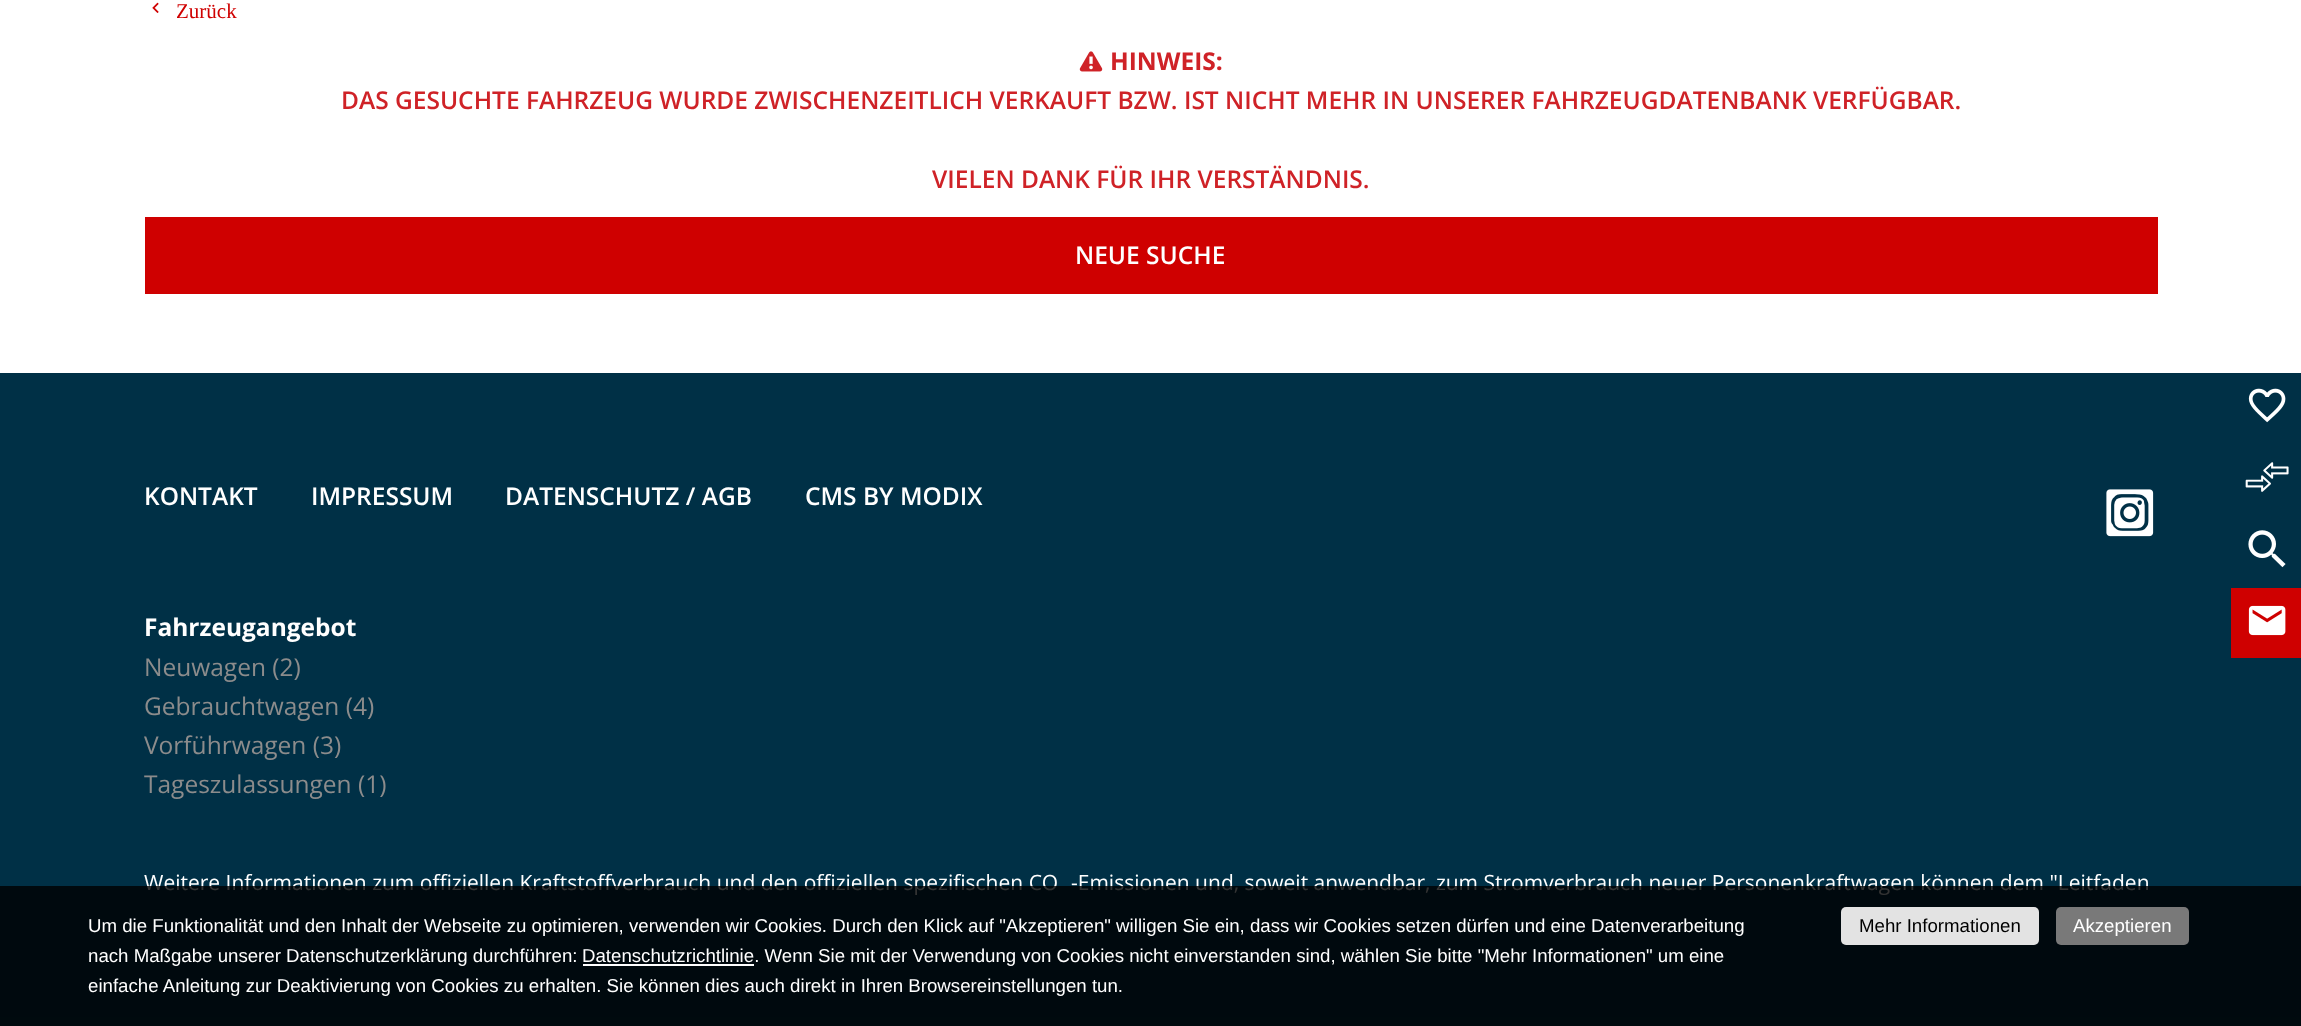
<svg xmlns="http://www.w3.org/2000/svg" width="2301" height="1026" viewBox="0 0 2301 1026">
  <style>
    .t1 { font: 21px Liberation Serif; fill: #cf0000; }
    .t2 { font: bold 24.5px Open Sans; fill: #cf2227; }
    .t3 { font: 600 24.5px Open Sans; fill: #cf2227; }
    .t4 { font: 600 24.5px Open Sans; fill: #fff; }
    .t5 { font: bold 24.5px Open Sans; fill: #fff; }
    .t6 { font: 24.5px Open Sans; fill: #8c8c8c; }
    .t7 { font: 21px Open Sans; fill: #fff; }
    .t8 { font: 18.67px Liberation Sans; fill: #fff; }
    .t9 { font: 18.67px Liberation Sans; fill: #000; }
  </style>
  <rect width="100%" height="100%" fill="#fff"/>
  <image x="152" y="2" width="7" height="11" href="images/1.png"/>
  <text x="176" y="18" class="t1">Zurück</text>
  <image x="1079" y="51" width="24" height="21" href="images/2.png"/>
  <text x="1110" y="70" class="t2">HINWEIS:</text>
  <text x="341" y="109" class="t3">DAS GESUCHTE FAHRZEUG WURDE ZWISCHENZEITLICH VERKAUFT BZW. IST NICHT MEHR IN UNSERER FAHRZEUGDATENBANK VERFÜGBAR.</text>
  <text x="932" y="188" class="t3">VIELEN DANK FÜR IHR VERSTÄNDNIS.</text>
  <rect x="145" y="217" width="2013" height="77" fill="#cf0000"/>
  <text x="1075" y="264" class="t4">NEUE SUCHE</text>
  <rect x="0" y="373" width="2301" height="653" fill="#003046"/>
  <text x="144" y="505" class="t4">KONTAKT</text>
  <text x="311" y="505" class="t4">IMPRESSUM</text>
  <text x="505" y="505" class="t4">DATENSCHUTZ / AGB</text>
  <text x="805" y="505" class="t4">CMS BY MODIX</text>
  <image x="2106" y="489" width="48" height="48" href="images/3.png"/>
  <text x="144" y="636" class="t5">Fahrzeugangebot</text>
  <text x="144" y="676" class="t6">Neuwagen (2)</text>
  <text x="144" y="715" class="t6">Gebrauchtwagen (4)</text>
  <text x="144" y="754" class="t6">Vorführwagen (3)</text>
  <text x="144" y="793" class="t6">Tageszulassungen (1)</text>
  <text x="144" y="890" class="t7">Weitere Informationen zum offiziellen Kraftstoffverbrauch und den offiziellen spezifischen CO</text>
  <text x="1071" y="890" class="t7">-Emissionen und, soweit anwendbar, zum Stromverbrauch neuer Personenkraftwagen können dem "Leitfaden</text>
  <image x="2248" y="388" width="38" height="35" href="images/4.png"/>
  <image x="2245" y="462" width="44" height="30" href="images/5.png"/>
  <image x="2248" y="530" width="38" height="38" href="images/6.png"/>
  <rect x="2231" y="588" width="70" height="70" fill="#cf0000"/>
  <image x="2248" y="605" width="38" height="31" href="images/7.png"/>
  <rect x="0" y="886" width="2301" height="140" fill="#000000cc"/>
  <text x="88" y="932" class="t8">Um die Funktionalität und den Inhalt der Webseite zu optimieren, verwenden wir Cookies. Durch den Klick auf "Akzeptieren" willigen Sie ein, dass wir Cookies setzen dürfen und eine Datenverarbeitung</text>
  <text x="88" y="962" class="t8">nach Maßgabe unserer Datenschutzerklärung durchführen:</text>
  <rect x="583" y="964" width="171" height="2" fill="#fff"/>
  <text x="582" y="962" class="t8">Datenschutzrichtlinie. Wenn Sie mit der Verwendung von Cookies nicht einverstanden sind, wählen Sie bitte "Mehr Informationen" um eine</text>
  <text x="88" y="992" class="t8">einfache Anleitung zur Deaktivierung von Cookies zu erhalten. Sie können dies auch direkt in Ihren Browsereinstellungen tun.</text>
  <rect x="1841" y="907" width="198" height="38" rx="5" fill="#e3e3e3"/>
  <text x="1859" y="932" class="t9">Mehr Informationen</text>
  <rect x="2056" y="907" width="133" height="38" rx="5" fill="#797979"/>
  <text x="2073" y="932" class="t8">Akzeptieren</text>
</svg>
